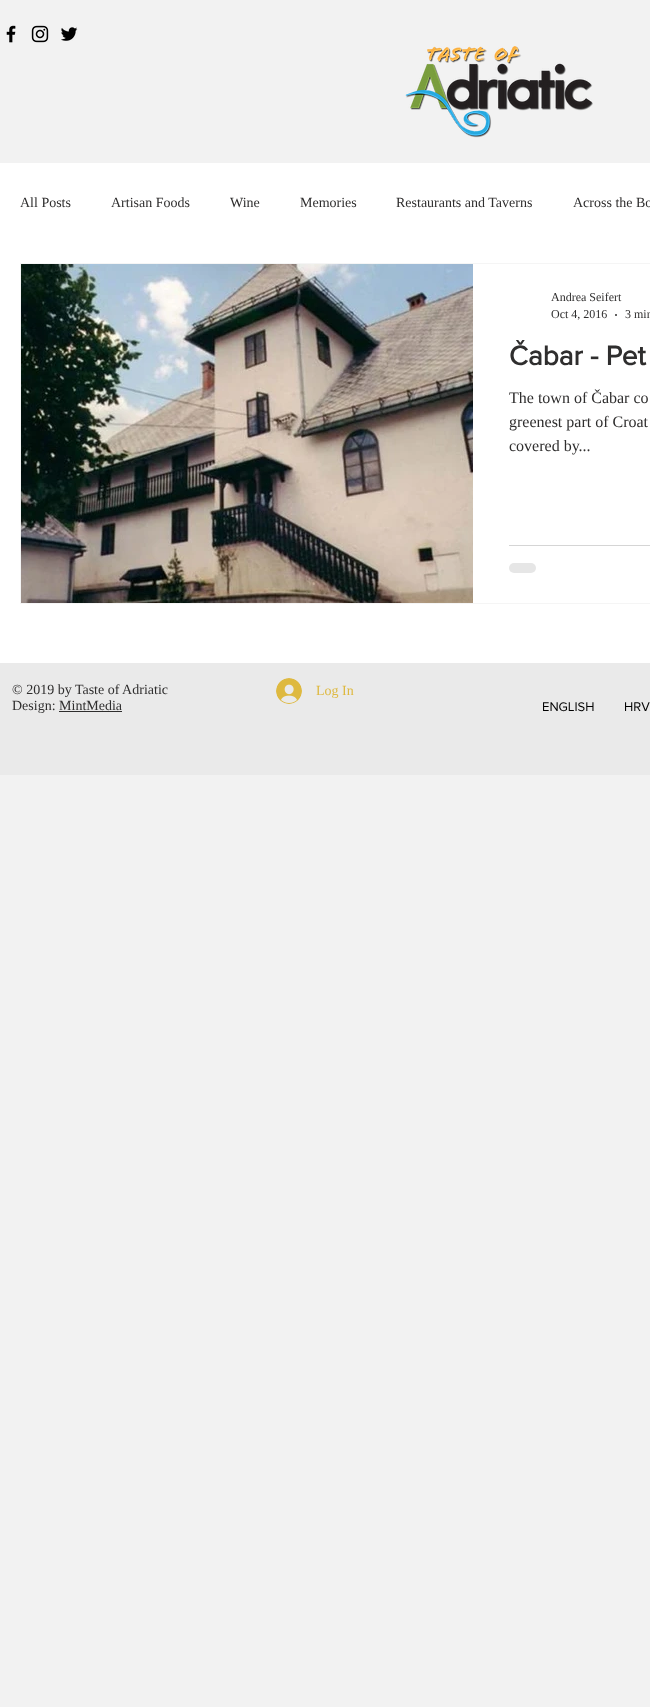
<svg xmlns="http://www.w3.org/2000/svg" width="650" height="1707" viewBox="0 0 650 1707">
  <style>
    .t1 { font: 14px Liberation Serif; fill: #2f2e2e; }
    .t2 { font: 12px Liberation Serif; fill: #2f2e2e; }
    .t3 { font: bold 28px 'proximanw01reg'; fill: #2f2e2e; }
    .t4 { font: 16px Liberation Serif; fill: #2f2e2e; }
    .t5 { font: 14px Liberation Serif; fill: #deb940; }
    .t6 { font: 13px 'proximanw01reg'; fill: #000; }
  </style>
  <rect width="100%" height="100%" fill="#f2f2f2"/>
  <image x="6" y="25" width="10" height="18" href="images/1.png"/>
  <image x="31" y="25" width="18" height="18" href="images/2.png"/>
  <image x="61" y="27" width="17" height="14" href="images/3.png"/>
  <image x="405" y="46" width="188" height="92" href="images/4.png"/>
  <rect x="0" y="163" width="650" height="500" fill="#fff"/>
  <text x="20" y="207" class="t1">All Posts</text>
  <text x="111" y="207" class="t1">Artisan Foods</text>
  <text x="230" y="207" class="t1">Wine</text>
  <text x="300" y="207" class="t1">Memories</text>
  <text x="396" y="207" class="t1">Restaurants and Taverns</text>
  <text x="573" y="207" class="t1">Across the Bo</text>
  <rect x="20.5" y="263.5" width="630" height="340" fill="none" stroke="#f5f5f5"/>
  <image x="21" y="264" width="452" height="339" href="images/5.png"/>
  <text x="551" y="301" class="t2">Andrea Seifert</text>
  <text x="551" y="318" class="t2">Oct 4, 2016</text>
  <circle cx="616" cy="315" r="1" fill="#2f2e2e"/>
  <text x="625" y="318" class="t2">3 min</text>
  <text x="509" y="365" class="t3">Čabar - Pet</text>
  <text x="509" y="403" class="t4">The town of Čabar co</text>
  <text x="509" y="427" class="t4">greenest part of Croat</text>
  <text x="509" y="451" class="t4">covered by...</text>
  <rect x="509" y="545" width="141" height="1" fill="#d5d5d5"/>
  <rect x="509" y="563" width="27" height="10" rx="5" fill="#e6e6e6"/>
  <rect x="0" y="663" width="650" height="112" fill="#eaeaea"/>
  <text x="12" y="694" class="t1">© 2019 by Taste of Adriatic</text>
  <text x="12" y="710" class="t1">Design: MintMedia</text>
  <rect x="59" y="711" width="63" height="1" fill="#2f2e2e"/>
  <image x="276" y="678" width="26" height="26" href="images/6.png"/>
  <text x="316" y="695" class="t5">Log In</text>
  <text x="542" y="711" class="t6">ENGLISH</text>
  <text x="624" y="711" class="t6">HRV</text>
</svg>
